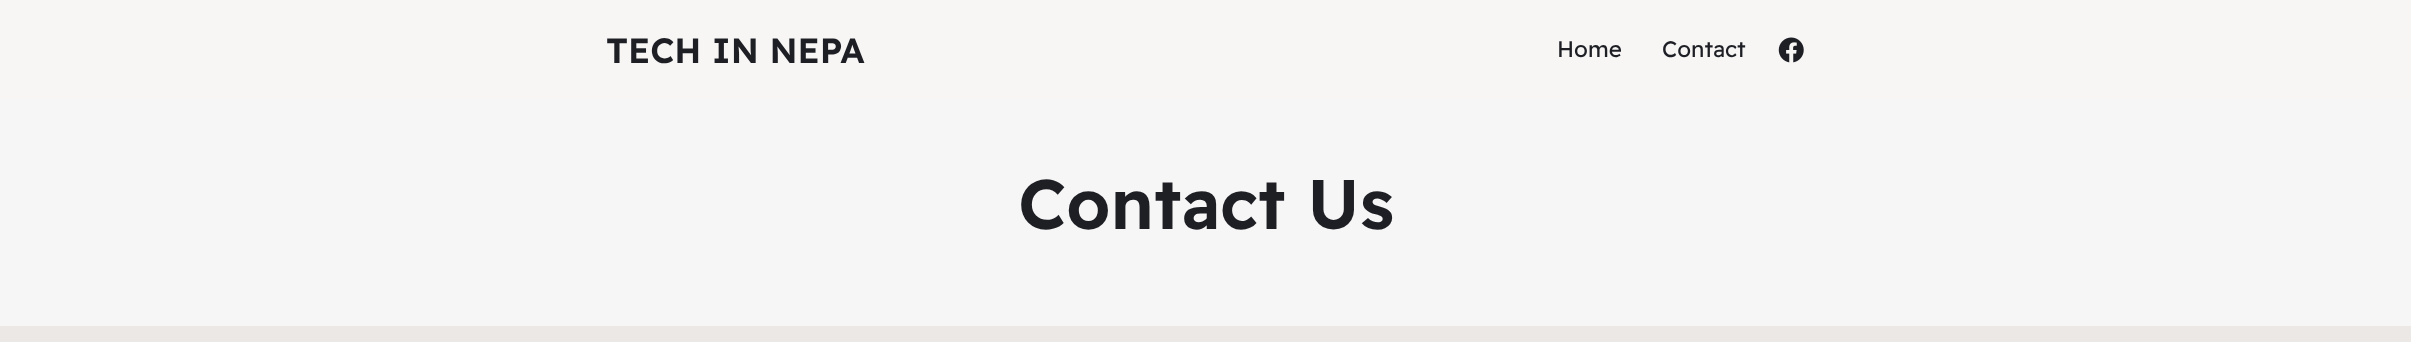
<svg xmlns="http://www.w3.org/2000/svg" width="2411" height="342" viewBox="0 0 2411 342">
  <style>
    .t1 { font: 600 35px Readex Pro; fill: #1d1f25; }
    .t2 { font: 22.5px Readex Pro; fill: #1d1f25; }
    .t3 { font: 600 70px Readex Pro; fill: #1d1f25; }
  </style>
  <rect width="100%" height="100%" fill="#ebe8e6"/>
  <rect x="0" y="0" width="2411" height="99" fill="#f7f6f5"/>
  <text x="606" y="63" class="t1">TECH IN NEPA</text>
  <text x="1557" y="57" class="t2">Home</text>
  <text x="1662" y="57" class="t2">Contact</text>
  <image x="1778" y="37" width="26" height="26" href="images/1.png"/>
  <rect x="0" y="99" width="2411" height="227" fill="#f7f6f6"/>
  <text x="1018" y="229" class="t3">Contact Us</text>
</svg>
